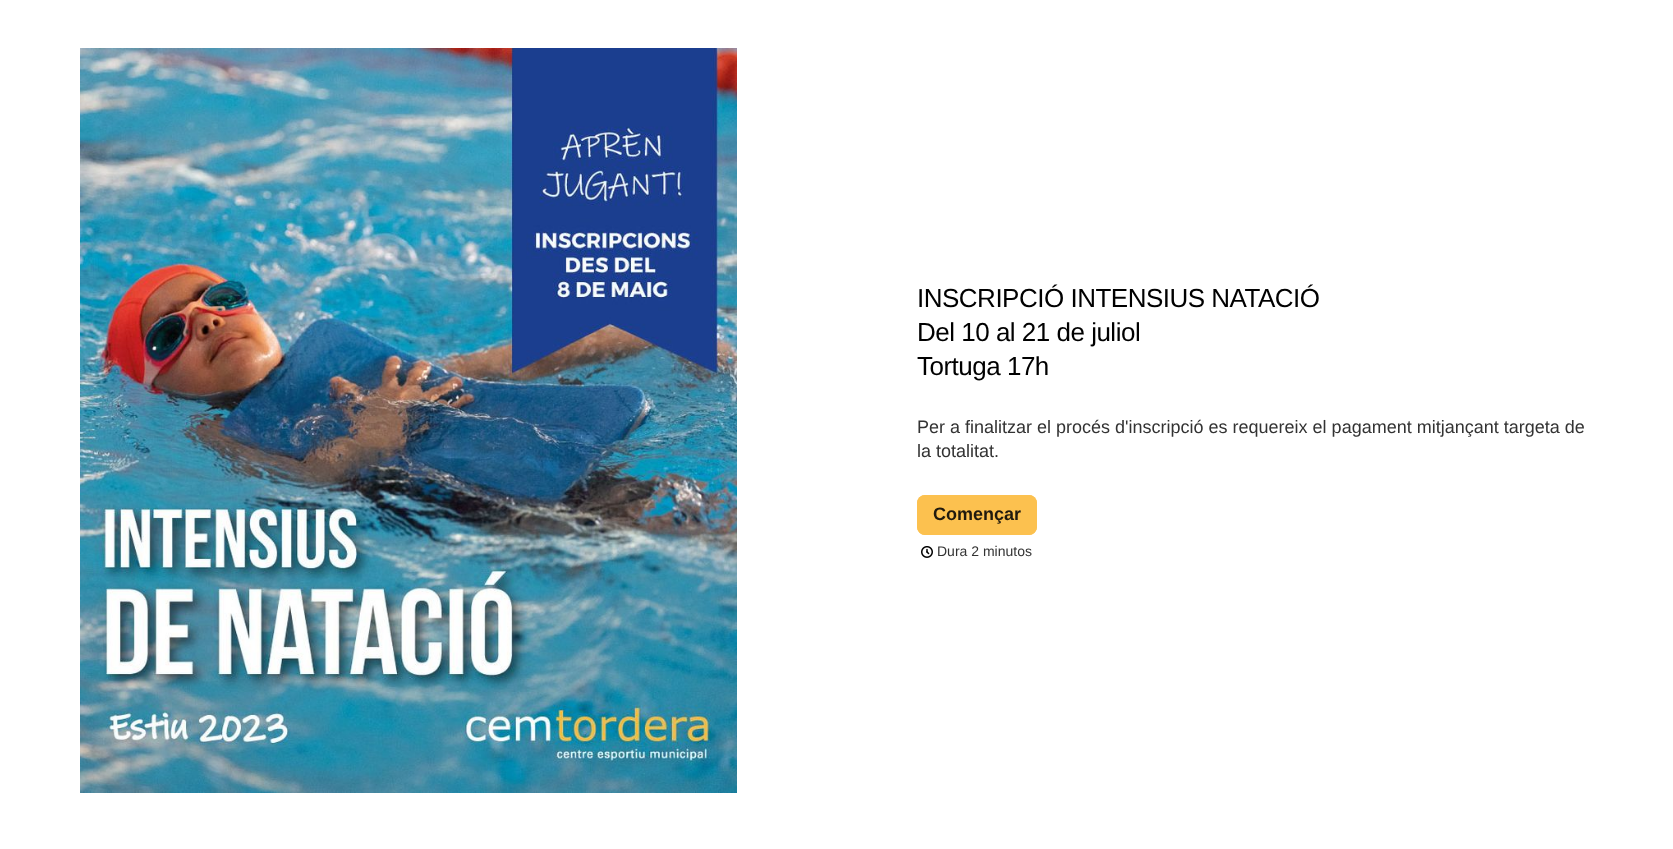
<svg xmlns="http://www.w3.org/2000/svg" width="1673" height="849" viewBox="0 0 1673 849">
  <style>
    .t1 { font: 26px Liberation Sans; letter-spacing: -0.5px; fill: #000; }
    .t2 { font: 18px Liberation Sans; fill: #333; }
    .t3 { font: bold 18px Liberation Sans; fill: #201a0e; }
    .t4 { font: 14px Liberation Sans; fill: #333; }
  </style>
  <rect width="100%" height="100%" fill="#fff"/>
  <image x="80" y="48" width="657" height="745" href="images/1.png"/>
  <text x="917" y="307" class="t1">INSCRIPCIÓ INTENSIUS NATACIÓ</text>
  <text x="917" y="341" class="t1">Del 10 al 21 de juliol</text>
  <text x="917" y="375" class="t1">Tortuga 17h</text>
  <text x="917" y="433" class="t2">Per a finalitzar el procés d'inscripció es requereix el pagament mitjançant targeta de</text>
  <text x="917" y="457" class="t2">la totalitat.</text>
  <rect x="917.5" y="495.5" width="119" height="39" rx="7.5" fill="none" stroke="#fcc14f"/>
  <rect x="917" y="495" width="120" height="40" rx="8" fill="#fcc14f" filter="blur(0.5px)"/>
  <text x="933" y="520" class="t3">Començar</text>
  <image x="921" y="546" width="12" height="12" href="images/2.png"/>
  <text x="937" y="556" class="t4">Dura 2 minutos</text>
</svg>
